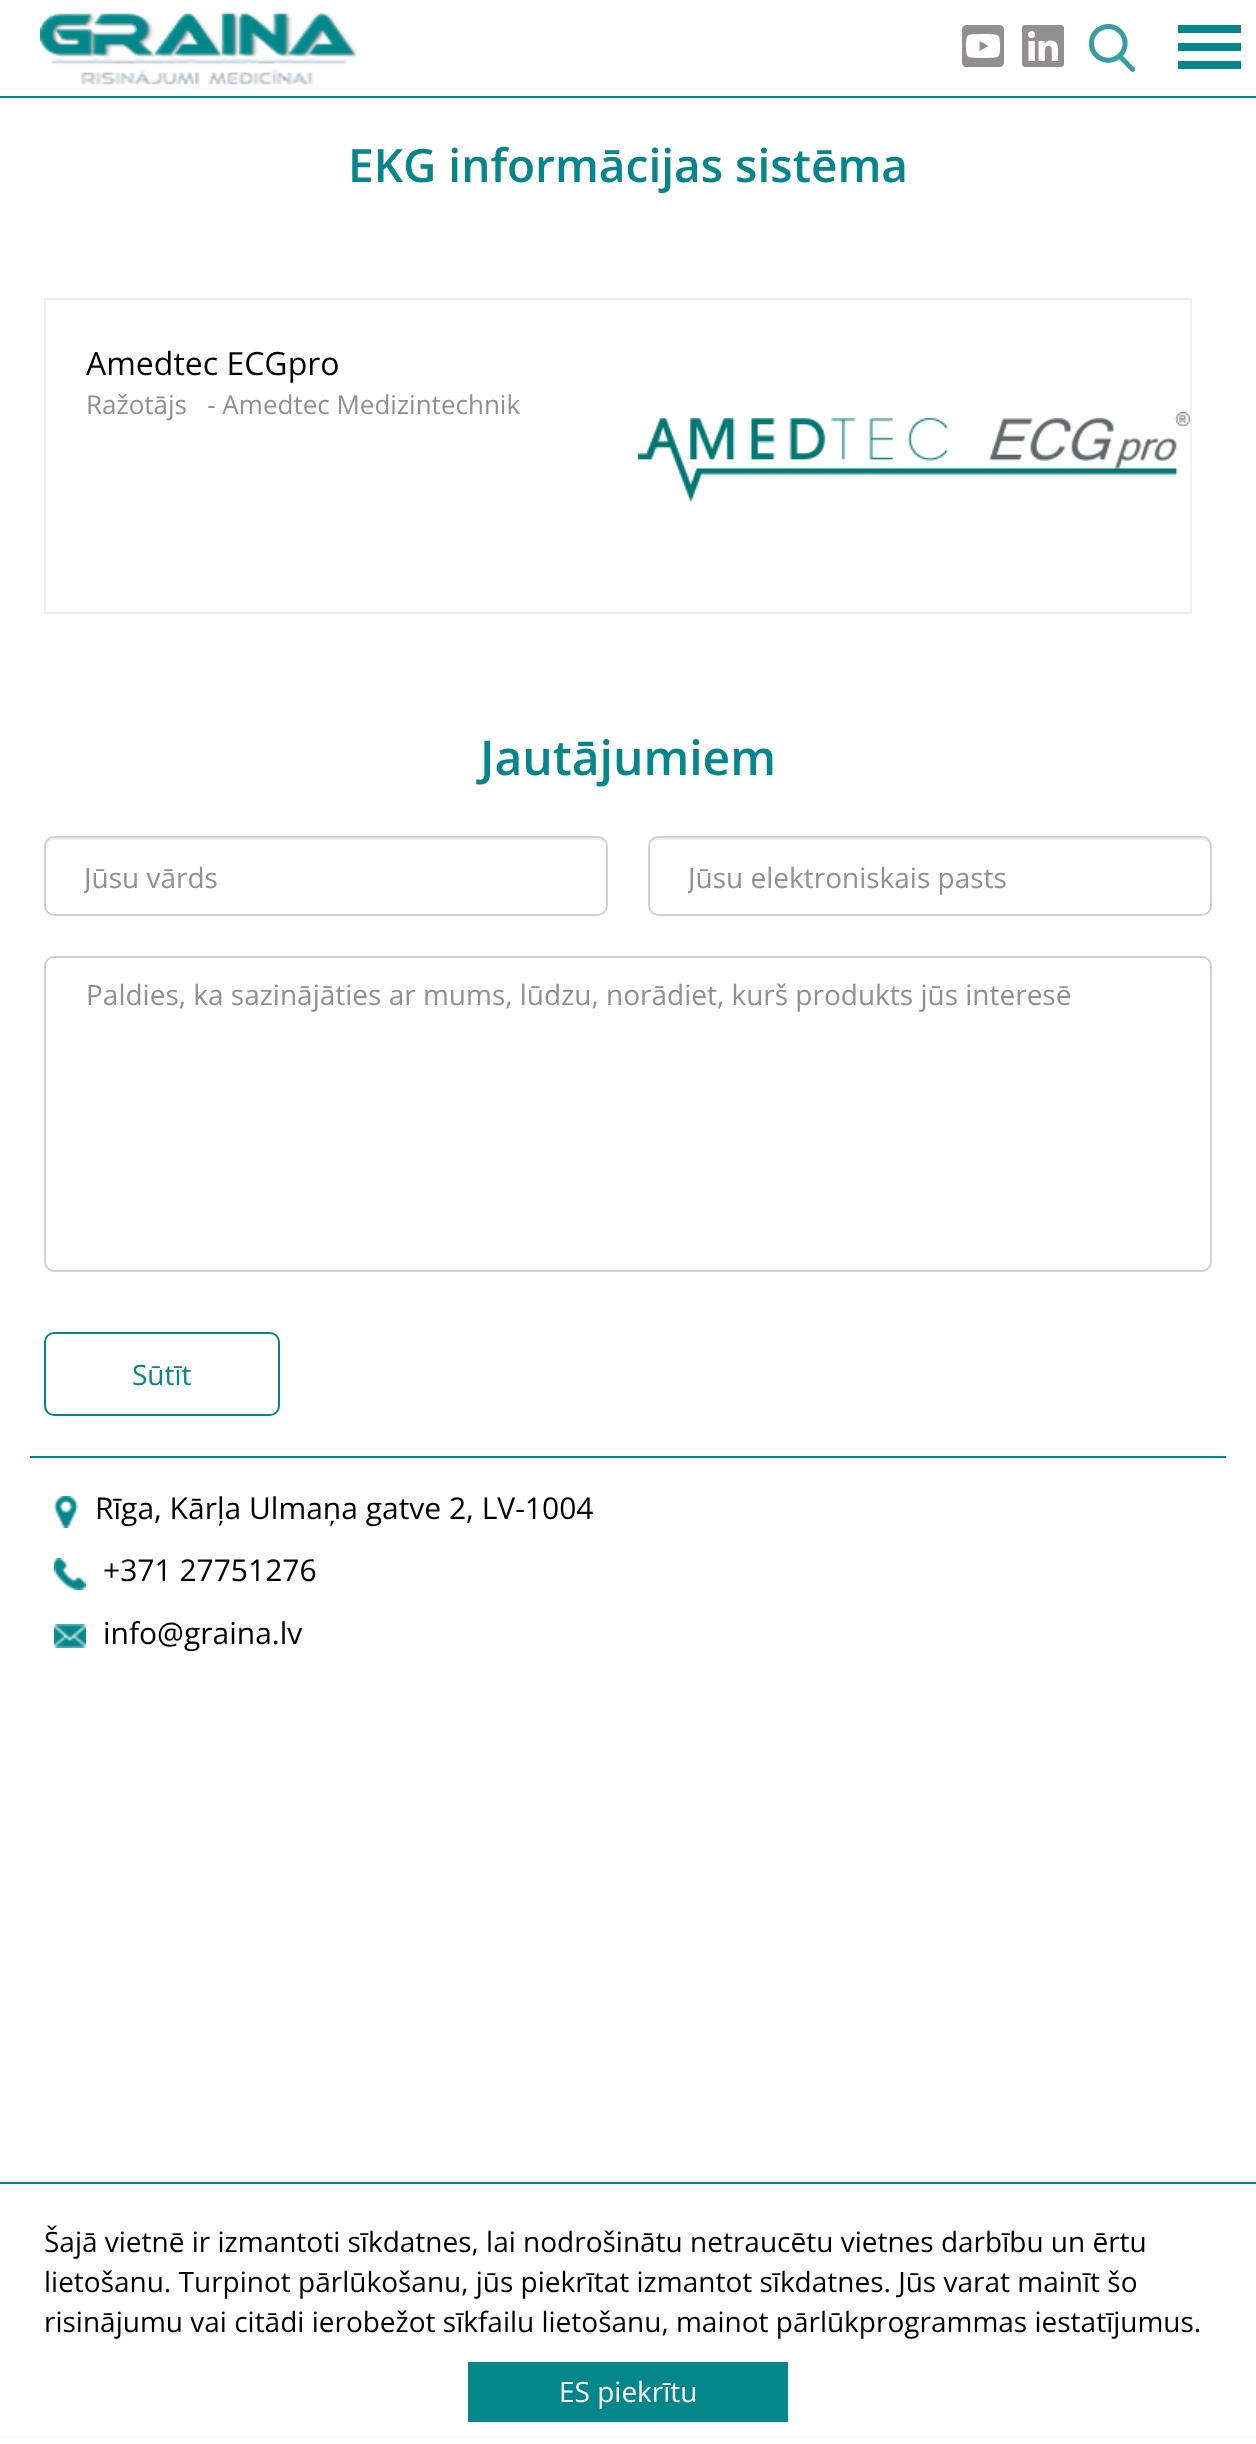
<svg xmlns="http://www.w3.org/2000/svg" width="1256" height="2444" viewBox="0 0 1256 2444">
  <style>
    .t1 { font: 600 46px Open Sans; fill: #04868a; }
    .t2 { font: 32px Open Sans; fill: #000; }
    .t3 { font: 26px Open Sans; fill: #938f8f; }
    .t4 { font: 600 48px Open Sans; fill: #04868a; }
    .t5 { font: 28px Open Sans; fill: #938f8f; }
    .t6 { font: 28px Open Sans; fill: #04868a; }
    .t7 { font: 30px Open Sans; fill: #000; }
    .t8 { font: 28px Open Sans; fill: #000; }
    .t9 { font: 28px Open Sans; fill: #fff; }
  </style>
  <defs>
    <clipPath id="clip1"><rect x="84" y="858" width="484" height="38"/></clipPath>
    <clipPath id="clip2"><rect x="688" y="858" width="484" height="38"/></clipPath>
  </defs>
  <rect width="100%" height="100%" fill="#fff"/>
  <rect x="0" y="96" width="1256" height="2" fill="#04868a"/>
  <image x="40" y="12" width="318" height="73" href="images/1.png"/>
  <image x="962" y="25" width="42" height="42" href="images/2.png"/>
  <image x="1022" y="25" width="42" height="42" href="images/3.png"/>
  <image x="1088" y="24" width="48" height="48" href="images/4.png"/>
  <rect x="1178" y="25" width="63" height="8" fill="#04868a"/>
  <rect x="1178" y="43" width="63" height="8" fill="#04868a"/>
  <rect x="1178" y="61" width="63" height="8" fill="#04868a"/>
  <text x="348" y="182" class="t1">EKG informācijas sistēma</text>
  <rect x="45" y="299" width="1146" height="314" fill="none" stroke="#f0f0f0" stroke-width="2"/>
  <text x="86" y="375" class="t2">Amedtec ECGpro</text>
  <text x="86" y="414" class="t3" xml:space="preserve">Ražotājs   - Amedtec Medizintechnik</text>
  <image x="638" y="412" width="552" height="90" href="images/5.png"/>
  <text x="480" y="775" class="t4">Jautājumiem</text>
  <path d="M54 840H598C602 840 606 844 606 848C606 843 604 838 598 838H54C48 838 46 843 46 848C46 844 50 840 54 840Z" fill="#ececec"/>
  <rect x="45" y="837" width="562" height="78" rx="9" fill="none" stroke="#d2d0d1" stroke-width="2"/>
  <g clip-path="url(#clip1)">
    <text x="84" y="888" class="t5">Jūsu vārds</text>
  </g>
  <path d="M658 840H1202C1206 840 1210 844 1210 848C1210 843 1208 838 1202 838H658C652 838 650 843 650 848C650 844 654 840 658 840Z" fill="#ececec"/>
  <rect x="649" y="837" width="562" height="78" rx="9" fill="none" stroke="#d2d0d1" stroke-width="2"/>
  <g clip-path="url(#clip2)">
    <text x="688" y="888" class="t5">Jūsu elektroniskais pasts</text>
  </g>
  <rect x="45" y="957" width="1166" height="314" rx="9" fill="none" stroke="#d2d0d1" stroke-width="2"/>
  <text x="86" y="1005" class="t5">Paldies, ka sazinājāties ar mums, lūdzu, norādiet, kurš produkts jūs interesē</text>
  <rect x="45" y="1333" width="234" height="82" rx="9" fill="none" stroke="#04868a" stroke-width="2"/>
  <text x="132" y="1385" class="t6">Sūtīt</text>
  <rect x="30" y="1456" width="1196" height="2" fill="#04868a"/>
  <image x="54" y="1496" width="24" height="32" href="images/6.png"/>
  <text x="95" y="1519" class="t7">Rīga, Kārļa Ulmaņa gatve 2, LV-1004</text>
  <image x="54" y="1558" width="32" height="32" href="images/7.png"/>
  <text x="103" y="1581" class="t7">+371 27751276</text>
  <image x="54" y="1624" width="32" height="24" href="images/8.png"/>
  <text x="103" y="1644" class="t7">info@graina.lv</text>
  <rect x="0" y="2182" width="1256" height="2" fill="#04868a"/>
  <text x="44" y="2252" class="t8">Šajā vietnē ir izmantoti sīkdatnes, lai nodrošinātu netraucētu vietnes darbību un ērtu</text>
  <text x="44" y="2292" class="t8">lietošanu. Turpinot pārlūkošanu, jūs piekrītat izmantot sīkdatnes. Jūs varat mainīt šo</text>
  <text x="44" y="2332" class="t8">risinājumu vai citādi ierobežot sīkfailu lietošanu, mainot pārlūkprogrammas iestatījumus.</text>
  <rect x="468" y="2362" width="320" height="60" fill="#04868a"/>
  <text x="559" y="2402" class="t9">ES piekrītu</text>
  <rect x="0" y="2436" width="1256" height="2" fill="#f8fbfc"/>
</svg>
